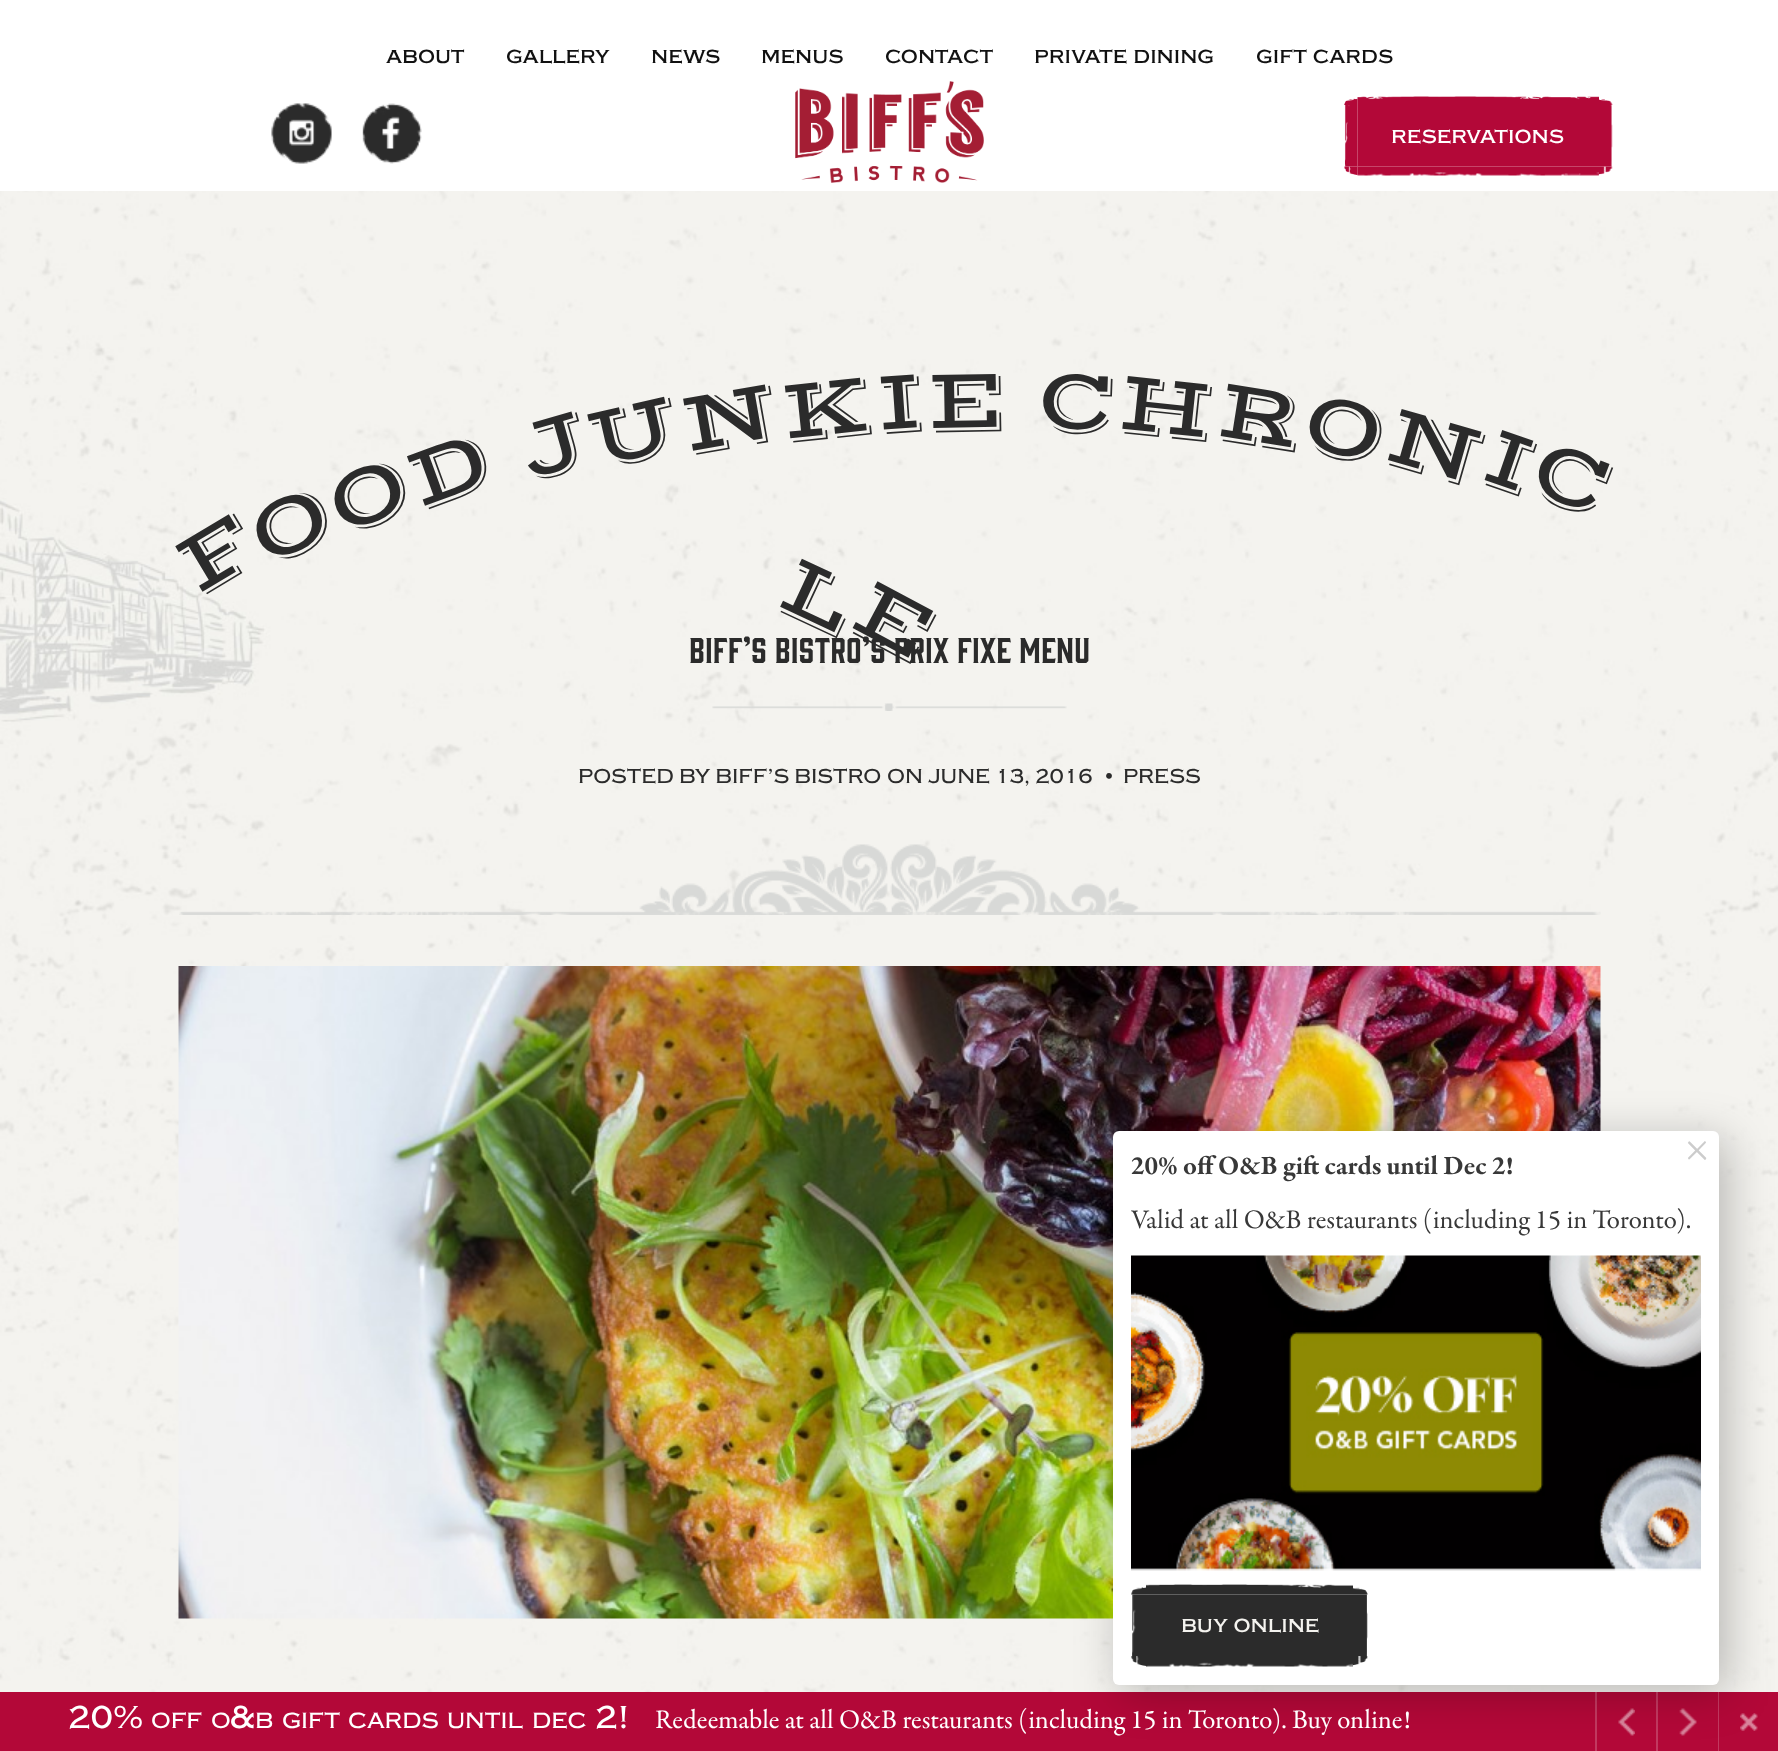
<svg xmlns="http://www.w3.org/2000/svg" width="1778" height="1751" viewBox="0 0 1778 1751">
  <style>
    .t1 { font: 500 24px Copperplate; fill: #111; }
    .t2 { font: 500 24px Copperplate; fill: #fff; }
    .t3 { font: 87px Vast Shadow; fill: #2b2b2b; }
    .t4 { font: 33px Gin; fill: #2b2b2b; }
    .t5 { font: 500 21px Copperplate; fill: #2b2b2b; }
    .t6 { font: 42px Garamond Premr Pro; fill: #ccc; }
    .t7 { font: bold 27px Garamond Premr Pro; fill: #383838; }
    .t8 { font: 27px Garamond Premr Pro; fill: #383838; }
    .t9 { font: 500 24px Copperplate; fill: #f4f3ef; }
    .t10 { font: 500 33px Copperplate; fill: #fff; }
    .t11 { font: 500 23px Copperplate; fill: #fff; }
    .t12 { font: 27px Garamond Premr Pro; fill: #fff; }
  </style>
  <rect width="100%" height="100%" fill="#fff"/>
  <image x="0" y="191" width="1778" height="1501" href="images/1.png"/>
  <text x="386" y="63" class="t1">about</text>
  <text x="506" y="63" class="t1">gallery</text>
  <text x="651" y="63" class="t1">news</text>
  <text x="761" y="63" class="t1">menus</text>
  <text x="885" y="63" class="t1">contact</text>
  <text x="1034" y="63" class="t1">private dining</text>
  <text x="1256" y="63" class="t1">gift cards</text>
  <image x="271" y="103" width="61" height="61" href="images/2.png"/>
  <image x="362" y="103" width="60" height="61" href="images/3.png"/>
  <image x="795" y="81" width="189" height="102" href="images/4.png"/>
  <image x="1344" y="96" width="269" height="80" href="images/5.png"/>
  <text x="1391" y="143" class="t2">reservations</text>
  <text x="197" y="595" transform="rotate(-31 197 595)" class="t3">F</text>
  <text x="267" y="566" transform="rotate(-27 267 566)" class="t3">O</text>
  <text x="343" y="535" transform="rotate(-24 343 535)" class="t3">O</text>
  <text x="419" y="508" transform="rotate(-20 419 508)" class="t3">D</text>
  <text x="528" y="479" transform="rotate(-16 528 479)" class="t3">J</text>
  <text x="595" y="467" transform="rotate(-13 595 467)" class="t3">U</text>
  <text x="686" y="452" transform="rotate(-10 686 452)" class="t3">N</text>
  <text x="784" y="439" transform="rotate(-6 784 439)" class="t3">K</text>
  <text x="878" y="430" transform="rotate(-4 878 430)" class="t3">I</text>
  <text x="927" y="428" transform="rotate(-1 927 428)" class="t3">E</text>
  <text x="1038" y="427" transform="rotate(2 1038 427)" class="t3">C</text>
  <text x="1116" y="428" transform="rotate(6 1116 428)" class="t3">H</text>
  <text x="1214" y="435" transform="rotate(9 1214 435)" class="t3">R</text>
  <text x="1300" y="445" transform="rotate(13 1300 445)" class="t3">O</text>
  <text x="1381" y="458" transform="rotate(16 1381 458)" class="t3">N</text>
  <text x="1479" y="478" transform="rotate(19 1479 478)" class="t3">I</text>
  <text x="1527" y="489" transform="rotate(21 1527 489)" class="t3">C</text>
  <text x="774" y="604" transform="rotate(25 774 604)" class="t3">L</text>
  <text x="689" y="663" class="t4">BIFF’S BISTRO’S PRIX FIXE MENU</text>
  <text x="847" y="625" transform="rotate(28 847 625)" class="t3">E</text>
  <image x="712" y="703" width="355" height="8" href="images/6.png"/>
  <text x="578" y="783" class="t5">POSTED BY BIFF’S BISTRO</text>
  <text x="887" y="783" class="t5">ON JUNE 13, 2016</text>
  <text x="1102" y="783" class="t5">•</text>
  <text x="1123" y="783" class="t5">PRESS</text>
  <image x="179" y="844" width="1422" height="71" href="images/7.png"/>
  <image x="178" y="966" width="1423" height="653" href="images/8.png"/>
  <rect x="0" y="1692" width="1778" height="59" fill="#b30838"/>
  <rect x="1595" y="1692" width="2" height="59" fill="#c23960"/>
  <image x="1618" y="1708" width="17" height="28" href="images/11.png"/>
  <rect x="1718" y="1692" width="1" height="59" fill="#c23960"/>
  <rect x="1656" y="1692" width="2" height="59" fill="#c23960"/>
  <image x="1679" y="1708" width="18" height="28" href="images/12.png"/>
  <image x="1740" y="1713" width="18" height="18" href="images/13.png"/>
  <rect x="1121" y="1139" width="606" height="553" rx="6" fill="#00000040" filter="blur(22.5px)"/>
  <rect x="1113" y="1131" width="606" height="554" rx="6" fill="#fff"/>
  <text x="1684" y="1161" class="t6">×</text>
  <text x="1131" y="1174" class="t7">20% off O&amp;B gift cards until Dec 2!</text>
  <text x="1131" y="1228" class="t8">Valid at all O&amp;B restaurants (including 15 in Toronto).</text>
  <image x="1131" y="1255" width="570" height="316" href="images/9.png"/>
  <image x="1131" y="1584" width="237" height="83" href="images/10.png"/>
  <text x="1181" y="1632" class="t9">buy online</text>
  <text x="68" y="1728" class="t10">20%</text>
  <text x="151" y="1728" class="t11">OFF</text>
  <text x="211" y="1728" class="t11">O</text>
  <text x="230" y="1728" class="t10">&amp;</text>
  <text x="255" y="1728" class="t11">B</text>
  <text x="282" y="1728" class="t11">GIFT</text>
  <text x="348" y="1728" class="t11">CARDS</text>
  <text x="447" y="1728" class="t11">UNTIL</text>
  <text x="532" y="1728" class="t11">DEC</text>
  <text x="595" y="1728" class="t10">2!</text>
  <text x="655" y="1728" class="t12">Redeemable at all O&amp;B restaurants (including 15 in Toronto). Buy online!</text>
</svg>
